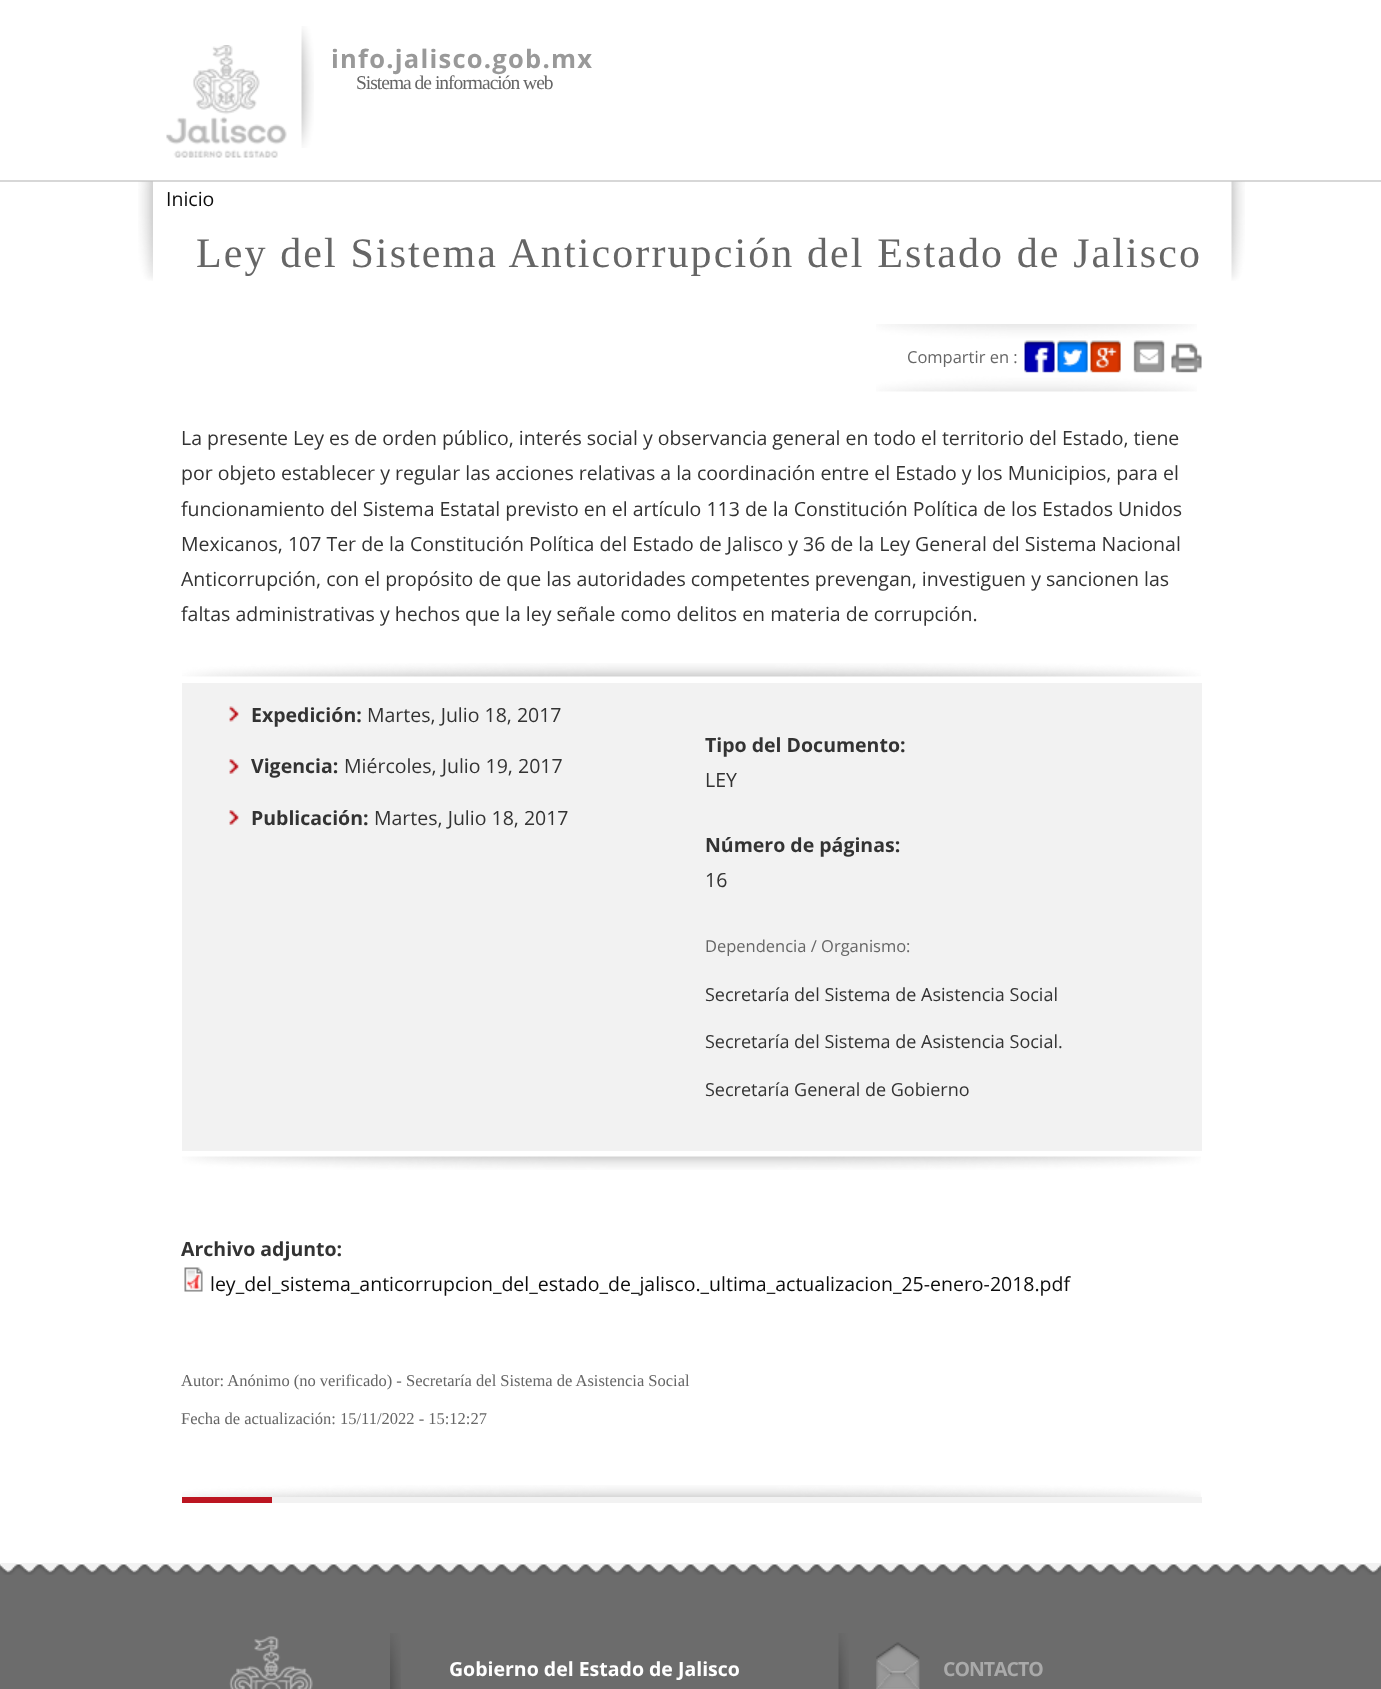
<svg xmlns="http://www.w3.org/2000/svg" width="1381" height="1689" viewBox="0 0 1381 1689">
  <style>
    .t1 { font: bold 25.5px Open Sans; letter-spacing: 1.25px; fill: #999; }
    .t2 { font: 19.5px Liberation Serif; letter-spacing: -1px; fill: #666; }
    .t3 { font: 19.5px Open Sans; fill: #0c0c0c; }
    .t4 { font: 42px Liberation Serif; letter-spacing: 2.1px; fill: #666; }
    .t5 { font: 16.5px Open Sans; fill: #666; }
    .t6 { font: 19.5px Open Sans; fill: #333; }
    .t7 { font: bold 19.5px Open Sans; fill: #333; }
    .t8 { font: 18px Open Sans; fill: #333; }
    .t9 { font: 16.5px Liberation Serif; fill: #666; }
    .t10 { font: bold 19.5px Open Sans; fill: #fff; }
    .t11 { font: bold 19.5px Open Sans; letter-spacing: -1px; fill: #aaa; }
  </style>
  <rect width="100%" height="100%" fill="#fff"/>
  <image x="301" y="26" width="13" height="122" href="images/1.png"/>
  <image x="166" y="45" width="121" height="113" href="images/2.png"/>
  <text x="331" y="68" class="t1">info.jalisco.gob.mx</text>
  <text x="356" y="89" class="t2">Sistema de información web</text>
  <rect x="0" y="180" width="1381" height="2" fill="#d7d7d7"/>
  <image x="138" y="181" width="1107" height="100" href="images/3.png"/>
  <text x="166" y="206" class="t3">Inicio</text>
  <text x="196" y="267" class="t4">Ley del Sistema Anticorrupción del Estado de Jalisco</text>
  <image x="876" y="324" width="321" height="68" href="images/4.png"/>
  <text x="907" y="363" class="t5">Compartir en :</text>
  <image x="1024" y="340" width="31" height="33" href="images/5.png"/>
  <image x="1057" y="340" width="31" height="33" href="images/6.png"/>
  <image x="1090" y="340" width="31" height="33" href="images/7.png"/>
  <image x="1133" y="340" width="32" height="33" href="images/8.png"/>
  <image x="1171" y="343" width="31" height="30" href="images/9.png"/>
  <text x="181" y="445" class="t6">La presente Ley es de orden público, interés social y observancia general en todo el territorio del Estado, tiene</text>
  <text x="181" y="480" class="t6">por objeto establecer y regular las acciones relativas a la coordinación entre el Estado y los Municipios, para el</text>
  <text x="181" y="516" class="t6">funcionamiento del Sistema Estatal previsto en el artículo 113 de la Constitución Política de los Estados Unidos</text>
  <text x="181" y="551" class="t6">Mexicanos, 107 Ter de la Constitución Política del Estado de Jalisco y 36 de la Ley General del Sistema Nacional</text>
  <text x="181" y="586" class="t6">Anticorrupción, con el propósito de que las autoridades competentes prevengan, investiguen y sancionen las</text>
  <text x="181" y="621" class="t6">faltas administrativas y hechos que la ley señale como delitos en materia de corrupción.</text>
  <image x="182" y="663" width="1019" height="507" href="images/10.png"/>
  <rect x="182" y="683" width="1020" height="468" fill="#f2f2f2"/>
  <image x="229" y="706" width="10" height="16" href="images/11.png"/>
  <text x="251" y="722" class="t7">Expedición:</text>
  <text x="367" y="722" class="t6">Martes, Julio 18, 2017</text>
  <image x="229" y="759" width="10" height="15" href="images/12.png"/>
  <text x="251" y="773" class="t7">Vigencia:</text>
  <text x="344" y="773" class="t6">Miércoles, Julio 19, 2017</text>
  <image x="229" y="810" width="10" height="15" href="images/12.png"/>
  <text x="251" y="825" class="t7">Publicación:</text>
  <text x="374" y="825" class="t6">Martes, Julio 18, 2017</text>
  <text x="705" y="752" class="t7">Tipo del Documento:</text>
  <text x="705" y="787" class="t6">LEY</text>
  <text x="705" y="852" class="t7">Número de páginas:</text>
  <text x="705" y="887" class="t6">16</text>
  <text x="705" y="952" class="t5">Dependencia / Organismo:</text>
  <text x="705" y="1001" class="t8">Secretaría del Sistema de Asistencia Social</text>
  <text x="705" y="1048" class="t8">Secretaría del Sistema de Asistencia Social.</text>
  <text x="705" y="1096" class="t8">Secretaría General de Gobierno</text>
  <text x="181" y="1256" class="t7">Archivo adjunto:</text>
  <image x="184" y="1267" width="19" height="25" href="images/13.png"/>
  <text x="210" y="1291" class="t3">ley_del_sistema_anticorrupcion_del_estado_de_jalisco._ultima_actualizacion_25-enero-2018.pdf</text>
  <image x="182" y="1485" width="1019" height="12" href="images/14.png"/>
  <text x="181" y="1386" class="t9">Autor: Anónimo (no verificado) - Secretaría del Sistema de Asistencia Social</text>
  <text x="181" y="1424" class="t9">Fecha de actualización: 15/11/2022 - 15:12:27</text>
  <rect x="272" y="1497" width="930" height="6" fill="#f2f2f2"/>
  <rect x="182" y="1497" width="90" height="6" fill="#bc1521"/>
  <rect x="0" y="1575" width="1381" height="114" fill="#6c6c6c"/>
  <image x="0" y="1563" width="1381" height="12" href="images/15.png"/>
  <image x="229" y="1636" width="84" height="53" href="images/16.png"/>
  <image x="390" y="1633" width="11" height="56" href="images/17.png"/>
  <text x="449" y="1676" class="t10">Gobierno del Estado de Jalisco</text>
  <image x="838" y="1633" width="11" height="56" href="images/18.png"/>
  <image x="876" y="1642" width="44" height="47" href="images/19.png"/>
  <text x="943" y="1676" class="t11">CONTACTO</text>
</svg>
